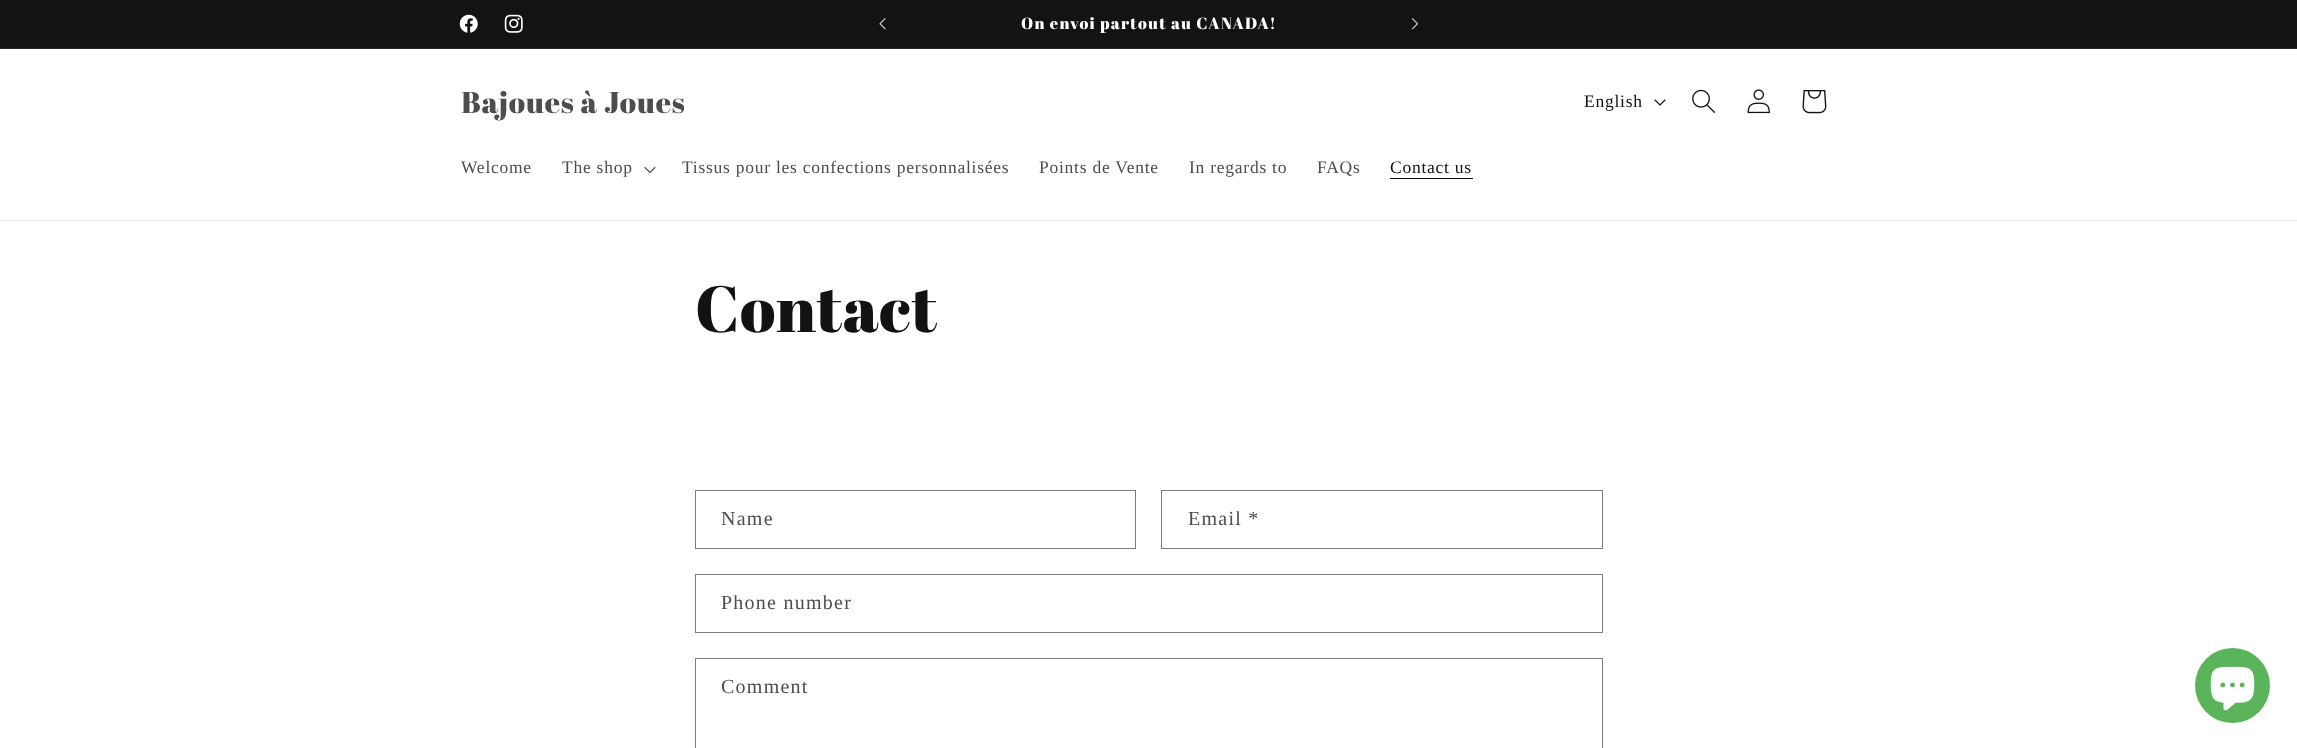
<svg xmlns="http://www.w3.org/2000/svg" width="2297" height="748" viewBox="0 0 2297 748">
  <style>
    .t1 { font: 16.25px Abril Fatface; letter-spacing: 1.25px; fill: #fff; }
    .t2 { font: 30px Abril Fatface; letter-spacing: 0.75px; fill: #4d4d4d; }
    .t3 { font: 17.5px Liberation Serif; letter-spacing: 0.75px; fill: #121212; }
    .t4 { font: 17.5px Liberation Serif; letter-spacing: 0.75px; fill: #4d4d4d; }
    .t5 { font: 65px Abril Fatface; letter-spacing: 0.75px; fill: #121212; }
    .t6 { font: 20px Liberation Serif; letter-spacing: 1.25px; fill: #4d4d4d; }
  </style>
  <rect width="100%" height="100%" fill="#fff"/>
  <rect x="0" y="0" width="2297" height="48" fill="#131313"/>
  <rect x="0" y="48" width="2297" height="1" fill="#262626"/>
  <image x="459" y="14" width="19" height="19" href="images/1.png"/>
  <image x="504" y="14" width="19" height="19" href="images/2.png"/>
  <image x="879" y="18" width="7" height="12" href="images/3.png"/>
  <text x="1021" y="29" class="t1">On envoi partout au CANADA!</text>
  <image x="1411" y="18" width="7" height="12" href="images/4.png"/>
  <rect x="0" y="220" width="2297" height="1" fill="#ececec"/>
  <text x="461" y="113" class="t2">Bajoues à Joues</text>
  <text x="1584" y="107" class="t3">English</text>
  <image x="1654" y="99" width="12" height="7" href="images/5.png"/>
  <image x="1692" y="89" width="23" height="24" href="images/6.png"/>
  <image x="1747" y="89" width="23" height="25" href="images/7.png"/>
  <image x="1802" y="90" width="25" height="24" href="images/8.png"/>
  <text x="461" y="173" class="t4">Welcome</text>
  <text x="562" y="173" class="t4">The shop</text>
  <image x="644" y="167" width="12" height="6" href="images/9.png"/>
  <text x="682" y="173" class="t4">Tissus pour les confections personnalisées</text>
  <text x="1039" y="173" class="t4">Points de Vente</text>
  <text x="1189" y="173" class="t4">In regards to</text>
  <text x="1317" y="173" class="t4">FAQs</text>
  <text x="1390" y="173" class="t3">Contact us</text>
  <rect x="1390" y="178" width="83" height="1" fill="#121212"/>
  <text x="695" y="332" class="t5">Contact</text>
  <rect x="695.5" y="490.5" width="440" height="58" fill="none" stroke="#7d7d7d"/>
  <text x="721" y="525" class="t6">Name</text>
  <rect x="1161.5" y="490.5" width="441" height="58" fill="none" stroke="#7d7d7d"/>
  <text x="1188" y="525" class="t6">Email *</text>
  <rect x="695.5" y="574.5" width="907" height="58" fill="none" stroke="#7d7d7d"/>
  <text x="721" y="609" class="t6">Phone number</text>
  <rect x="695.5" y="658.5" width="907" height="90" fill="none" stroke="#7d7d7d"/>
  <text x="721" y="693" class="t6">Comment</text>
  <circle cx="2232.5" cy="685.5" r="37.5" fill="#5ab55a"/>
  <image x="2210" y="666" width="45" height="45" href="images/10.png"/>
</svg>
